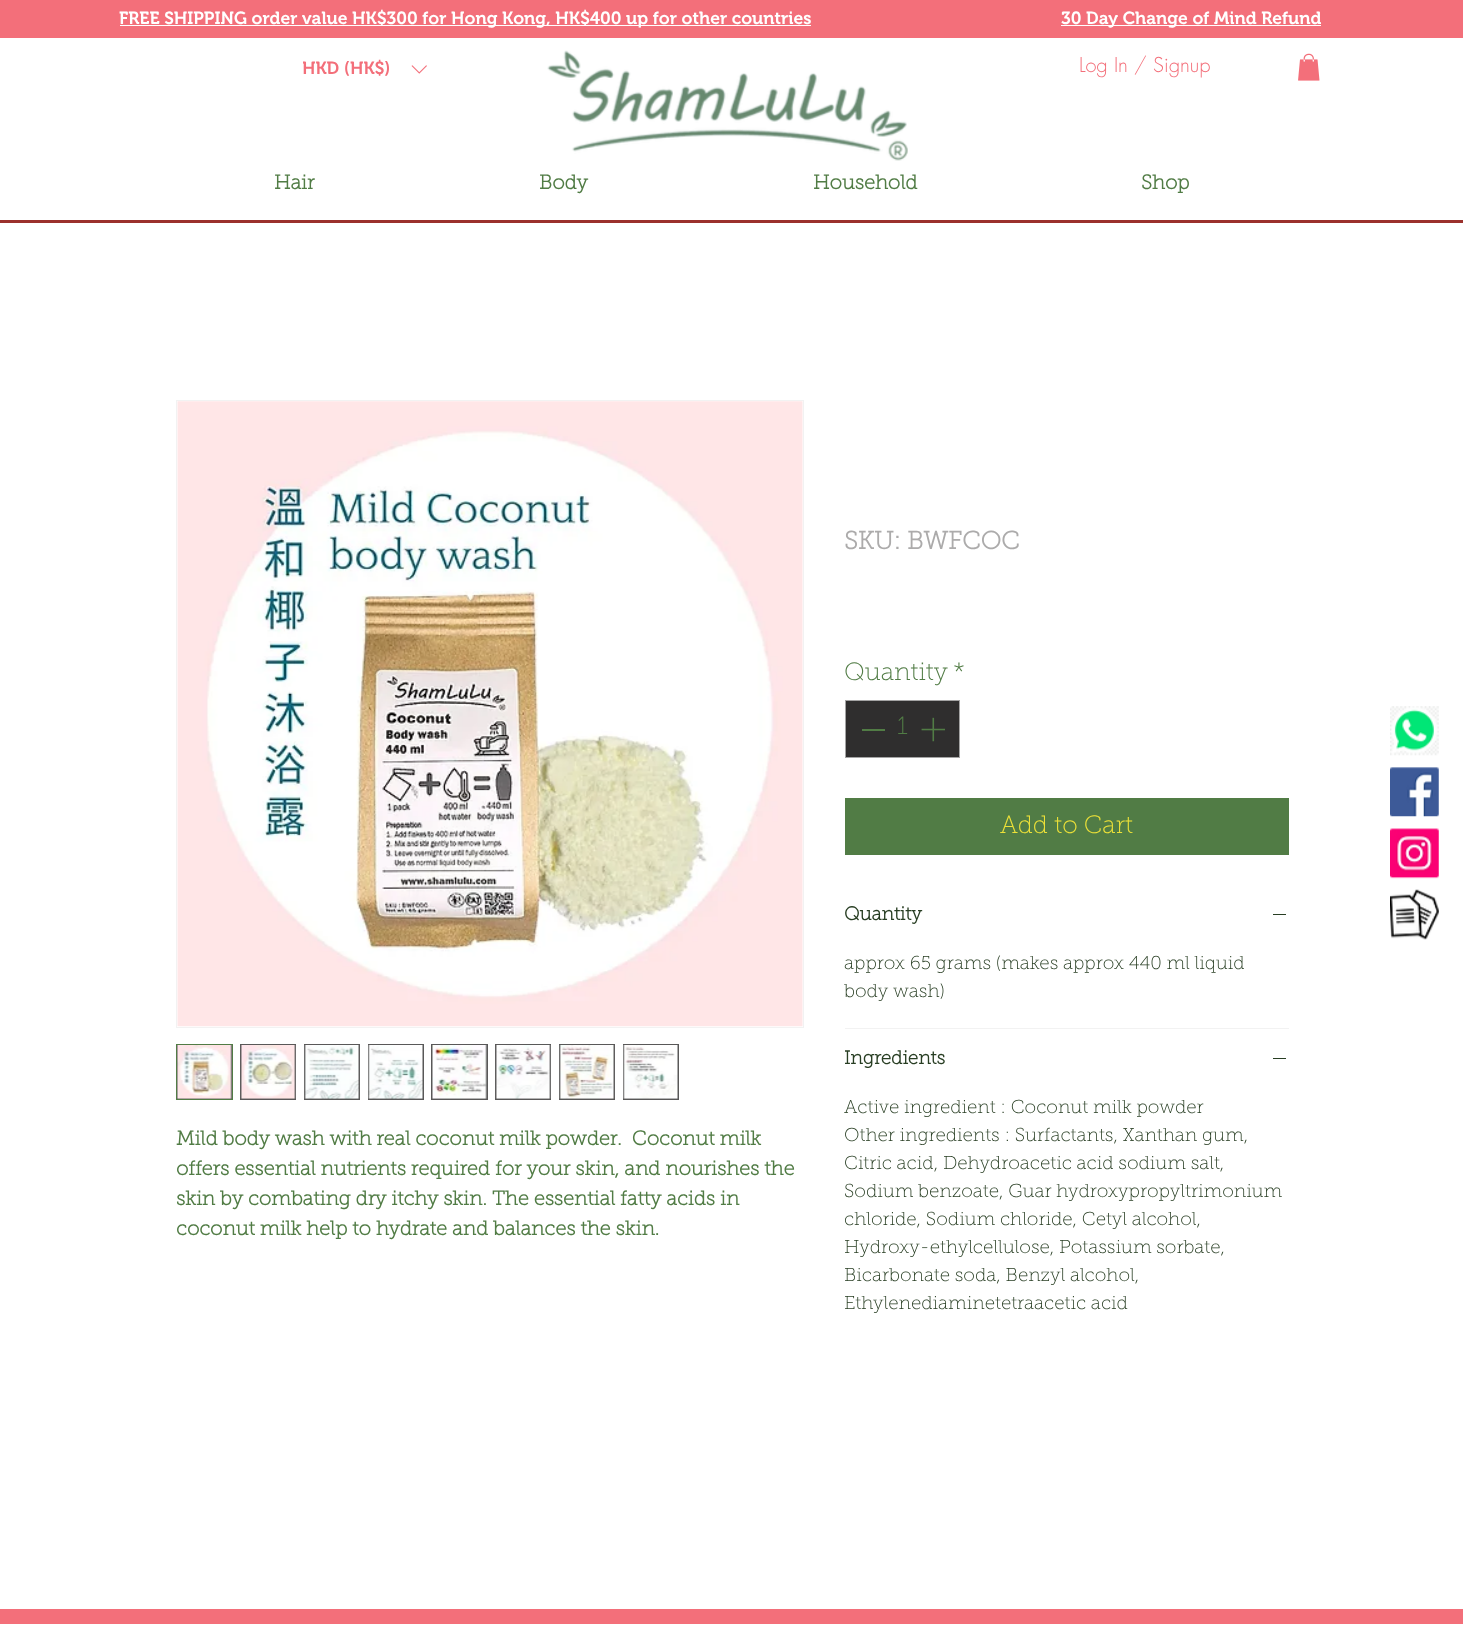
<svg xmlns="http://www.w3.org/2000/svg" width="1463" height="1644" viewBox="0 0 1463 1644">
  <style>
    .t1 { font: 600 17.5px 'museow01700'; fill: #fff; }
    .t2 { font: 600 17.5px 'museow01700'; fill: #f36f7a; }
    .t3 { font: 300 20px futura; fill: #f36f7a; }
    .t4 { font: bold 20px 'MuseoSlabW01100'; fill: #517c45; }
    .t5 { font: bold 25px 'MuseoSlabW01100'; fill: #acabab; }
    .t6 { font: 100 25px 'MuseoSlabW01100'; fill: #517c45; }
    .t7 { font: 100 25px 'MuseoSlabW01100'; fill: #ede138; }
    .t8 { font: bold 18.75px 'MuseoSlabW01100'; fill: #283e23; }
    .t9 { font: 100 18.75px 'MuseoSlabW01100'; fill: #283e23; }
  </style>
  <defs>
    <clipPath id="clip1"><rect x="303" y="59" width="98" height="21"/></clipPath>
  </defs>
  <rect width="100%" height="100%" fill="#fff"/>
  <rect x="0" y="0" width="1463" height="38" fill="#f36f7a"/>
  <rect x="120" y="25" width="691" height="1" fill="#fff"/>
  <text x="119" y="24" class="t1">FREE SHIPPING order value HK$300 for Hong Kong, HK$400 up for other countries</text>
  <rect x="1061" y="25" width="260" height="1" fill="#fff"/>
  <text x="1061" y="24" class="t1">30 Day Change of Mind Refund</text>
  <g clip-path="url(#clip1)">
    <text x="302" y="74" class="t2">HKD (HK$)</text>
  </g>
  <image x="411" y="65" width="16" height="9" href="images/1.png"/>
  <image x="547" y="50" width="361" height="111" href="images/2.png"/>
  <text x="1079" y="72" class="t3">Log In / Signup</text>
  <image x="1298" y="53" width="22" height="28" href="images/3.png"/>
  <text x="274" y="189" class="t4">Hair</text>
  <text x="539" y="189" class="t4">Body</text>
  <text x="813" y="189" class="t4">Household</text>
  <text x="1141" y="189" class="t4">Shop</text>
  <rect x="0" y="220" width="1463" height="3" fill="#9b312d"/>
  <rect x="176.5" y="400.5" width="627" height="627" fill="none" stroke="#f2f2f2"/>
  <image x="177" y="401" width="626" height="626" href="images/4.png"/>
  <rect x="176.5" y="1044.5" width="56" height="55" fill="#595858" stroke="#517c45"/>
  <image x="177" y="1045" width="55" height="54" href="images/5.png"/>
  <rect x="240" y="1044" width="56" height="56" fill="#595858"/>
  <image x="240" y="1045" width="56" height="54" href="images/6.png"/>
  <rect x="304" y="1044" width="56" height="56" fill="#595858"/>
  <image x="304" y="1045" width="56" height="54" href="images/7.png"/>
  <rect x="368" y="1044" width="56" height="56" fill="#595858"/>
  <image x="368" y="1045" width="55" height="54" href="images/8.png"/>
  <rect x="431" y="1044" width="57" height="56" fill="#595858"/>
  <image x="432" y="1045" width="55" height="54" href="images/9.png"/>
  <rect x="495" y="1044" width="56" height="56" fill="#595858"/>
  <image x="495" y="1045" width="56" height="54" href="images/10.png"/>
  <rect x="559" y="1044" width="56" height="56" fill="#595858"/>
  <image x="559" y="1045" width="56" height="54" href="images/11.png"/>
  <rect x="623" y="1044" width="56" height="56" fill="#595858"/>
  <image x="623" y="1045" width="55" height="54" href="images/12.png"/>
  <text x="176" y="1145" class="t4" xml:space="preserve">Mild body wash with real coconut milk powder.  Coconut milk</text>
  <text x="176" y="1175" class="t4">offers essential nutrients required for your skin, and nourishes the</text>
  <text x="176" y="1205" class="t4">skin by combating dry itchy skin. The essential fatty acids in</text>
  <text x="176" y="1235" class="t4">coconut milk help to hydrate and balances the skin.</text>
  <text x="844" y="549" class="t5">SKU: BWFCOC</text>
  <text x="844" y="680" class="t6">Quantity</text>
  <text x="953" y="680" class="t6">*</text>
  <rect x="845.5" y="700.5" width="114" height="57" fill="#2f2e2e" stroke="#a4a4a4"/>
  <rect x="862" y="729" width="23" height="2" fill="#517c45"/>
  <text x="897" y="734" class="t6">1</text>
  <image x="921" y="717" width="24" height="25" href="images/13.png"/>
  <rect x="845" y="798" width="444" height="57" fill="#517c45"/>
  <text x="1000" y="833" class="t7">Add to Cart</text>
  <rect x="845" y="1028" width="444" height="1" fill="#f2f2f2"/>
  <text x="844" y="920" class="t8">Quantity</text>
  <rect x="1273" y="914" width="13" height="1" fill="#283e23"/>
  <text x="844" y="969" class="t9">approx 65 grams (makes approx 440 ml liquid</text>
  <text x="844" y="997" class="t9">body wash)</text>
  <text x="844" y="1064" class="t8">Ingredients</text>
  <rect x="1273" y="1058" width="13" height="1" fill="#283e23"/>
  <text x="844" y="1113" class="t9">Active ingredient : Coconut milk powder</text>
  <text x="844" y="1141" class="t9">Other ingredients : Surfactants, Xanthan gum,</text>
  <text x="844" y="1169" class="t9">Citric acid, Dehydroacetic acid sodium salt,</text>
  <text x="844" y="1197" class="t9">Sodium benzoate, Guar hydroxypropyltrimonium</text>
  <text x="844" y="1225" class="t9">chloride, Sodium chloride, Cetyl alcohol,</text>
  <text x="844" y="1253" class="t9">Hydroxy-ethylcellulose, Potassium sorbate,</text>
  <text x="844" y="1281" class="t9">Bicarbonate soda, Benzyl alcohol,</text>
  <text x="844" y="1309" class="t9">Ethylenediaminetetraacetic acid</text>
  <image x="1390" y="706" width="49" height="50" href="images/14.png"/>
  <image x="1390" y="767" width="49" height="50" href="images/15.png"/>
  <image x="1390" y="828" width="49" height="51" href="images/16.png"/>
  <image x="1390" y="889" width="49" height="51" href="images/17.png"/>
  <rect x="0" y="1609" width="1463" height="15" fill="#f36f7a"/>
</svg>
